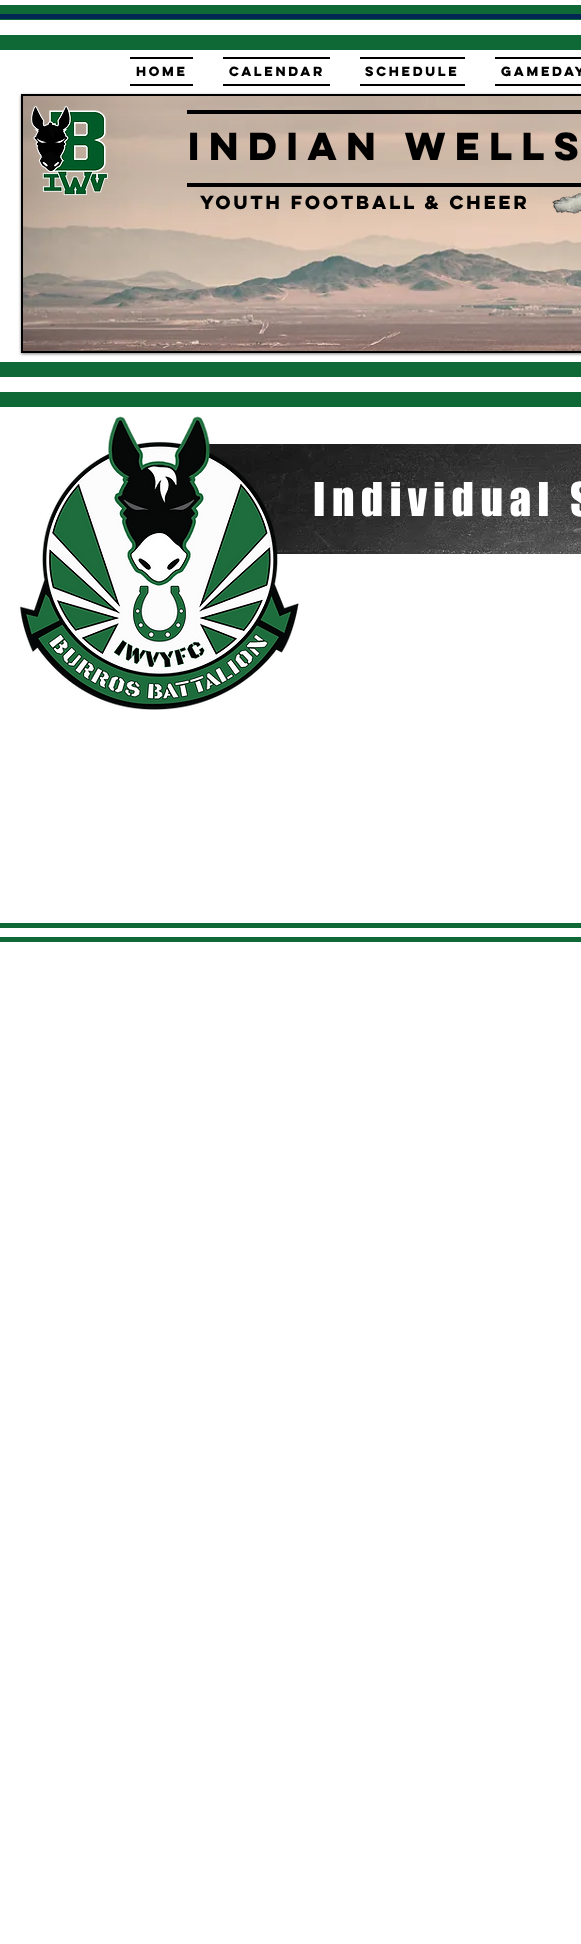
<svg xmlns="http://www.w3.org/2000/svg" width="581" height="1944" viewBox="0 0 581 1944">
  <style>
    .t1 { font: bold 12px 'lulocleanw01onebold'; fill: #000; }
    .t2 { font: bold 35px 'lulocleanw01onebold'; letter-spacing: 1.75px; fill: #000; }
    .t3 { font: bold 17px 'lulocleanw01onebold'; letter-spacing: -0.85px; fill: #000; }
    .t4 { font: 43px 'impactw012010'; letter-spacing: 6.5px; fill: #fff; }
  </style>
  <rect width="100%" height="100%" fill="#fff"/>
  <rect x="0" y="5" width="581" height="15" fill="#0e6937"/>
  <rect x="0" y="392" width="581" height="15" fill="#0e6937"/>
  <rect x="0" y="35" width="581" height="15" fill="#0e6937"/>
  <rect x="0" y="362" width="581" height="15" fill="#0e6937"/>
  <rect x="0" y="14" width="581" height="5" fill="#002754"/>
  <rect x="130" y="57" width="63" height="2" fill="#000"/>
  <rect x="130" y="84" width="63" height="2" fill="#000"/>
  <text x="136" y="76" class="t1">HOME</text>
  <rect x="223" y="57" width="107" height="2" fill="#000"/>
  <rect x="223" y="84" width="107" height="2" fill="#000"/>
  <text x="229" y="76" class="t1">CALENDAR</text>
  <rect x="360" y="57" width="105" height="2" fill="#000"/>
  <rect x="360" y="84" width="105" height="2" fill="#000"/>
  <text x="365" y="76" class="t1">SCHEDULE</text>
  <rect x="495" y="57" width="86" height="2" fill="#000"/>
  <rect x="495" y="84" width="86" height="2" fill="#000"/>
  <text x="501" y="76" class="t1">GAMEDAY</text>
  <rect x="21" y="95" width="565" height="259" fill="#00000080" filter="blur(1.5px)"/>
  <rect x="21" y="94" width="560" height="259" fill="#000"/>
  <image x="23" y="96" width="558" height="255" href="images/1.png"/>
  <image x="31" y="106" width="77" height="90" href="images/2.png"/>
  <rect x="187" y="110" width="394" height="4" fill="#000"/>
  <text x="188" y="160" class="t2">Indian Wells</text>
  <rect x="187" y="183" width="394" height="4" fill="#000"/>
  <text x="200" y="209" class="t3">Youth Football &amp; Cheer</text>
  <image x="552" y="193" width="29" height="21" href="images/3.png"/>
  <image x="155" y="444" width="426" height="110" href="images/5.png"/>
  <image x="18" y="416" width="281" height="294" href="images/4.png"/>
  <text x="313" y="516" class="t4">Individual S</text>
  <rect x="0" y="923" width="581" height="5" fill="#0e6937"/>
  <rect x="0" y="937" width="581" height="5" fill="#0e6937"/>
</svg>
